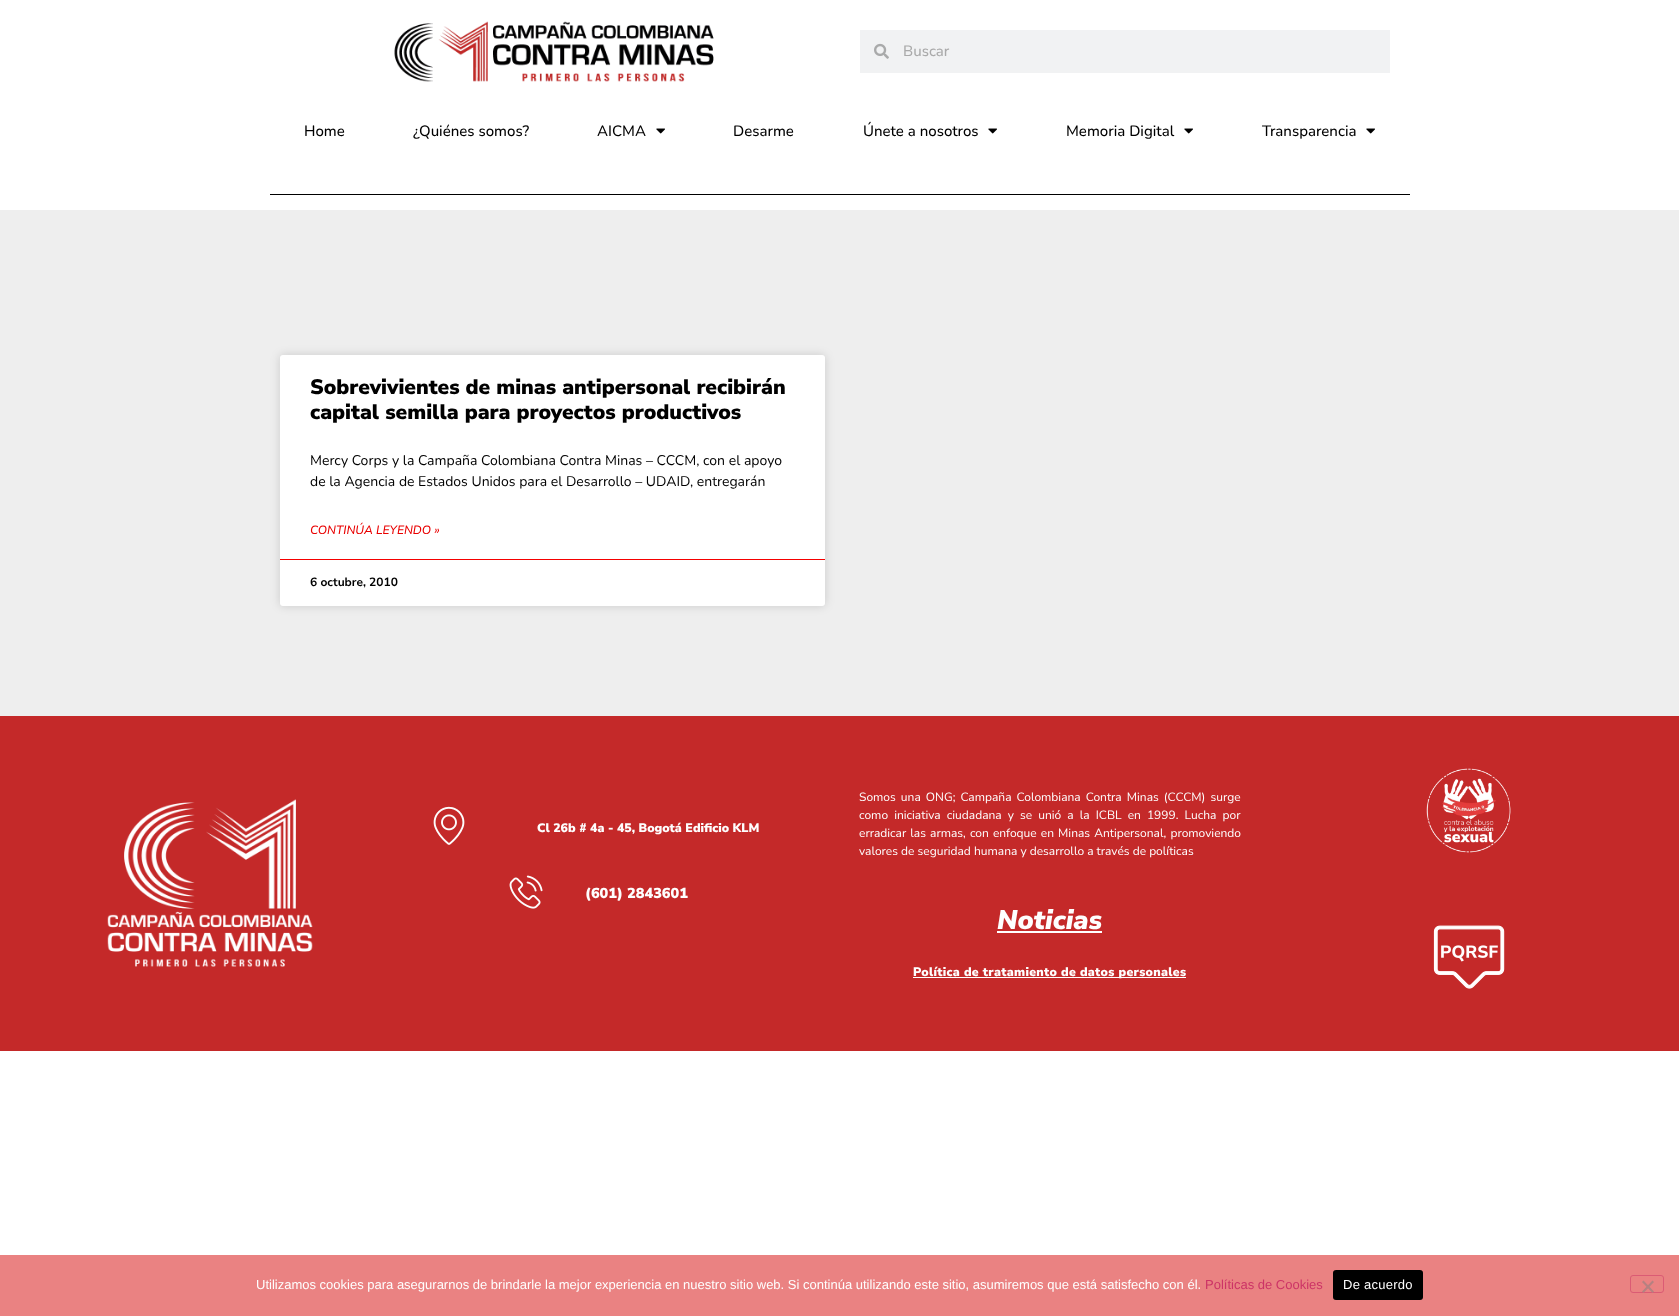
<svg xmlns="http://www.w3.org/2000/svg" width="1679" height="1316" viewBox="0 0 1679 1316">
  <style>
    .t1 { font: 500 15px Nunito Sans; fill: #aaa; }
    .t2 { font: 500 15px Nunito; fill: #000; }
    .t3 { font: 900 21px Nunito Sans; fill: #000; }
    .t4 { font: 14px Nunito; fill: #000; }
    .t5 { font: italic 500 12px Nunito Sans; fill: #e90000; }
    .t6 { font: bold 12px Nunito Sans; fill: #000; }
    .t7 { font: 900 12.3px Nunito Sans; fill: #fefefe; }
    .t8 { font: 900 14.5px Nunito Sans; fill: #fefefe; }
    .t9 { font: 12px Nunito Sans; fill: #fefefe; }
    .t10 { font: italic 900 27px Nunito Sans; fill: #fefefe; }
    .t11 { font: 900 12.3px Nunito Sans; letter-spacing: 0.3px; fill: #fefefe; }
    .t12 { font: 13px Liberation Sans; fill: #fefefe; }
    .t13 { font: 13px Liberation Sans; fill: #c36; }
    .t14 { font: 13px Liberation Sans; letter-spacing: 0.25px; fill: #fefefe; }
  </style>
  <rect width="100%" height="100%" fill="#fff"/>
  <image x="394" y="21" width="320" height="61" href="images/1.png"/>
  <rect x="860" y="30" width="530" height="43" fill="#f1f2f3"/>
  <image x="874" y="43" width="15" height="16" href="images/2.png"/>
  <text x="903" y="56" class="t1">Buscar</text>
  <text x="304" y="136" class="t2">Home</text>
  <text x="413" y="136" class="t2">¿Quiénes somos?</text>
  <text x="597" y="136" class="t2">AICMA</text>
  <image x="656" y="128" width="9" height="6" href="images/3.png"/>
  <text x="733" y="136" class="t2">Desarme</text>
  <text x="863" y="136" class="t2">Únete a nosotros</text>
  <image x="988" y="128" width="9" height="6" href="images/3.png"/>
  <text x="1066" y="136" class="t2">Memoria Digital</text>
  <image x="1184" y="128" width="9" height="6" href="images/3.png"/>
  <text x="1262" y="136" class="t2">Transparencia</text>
  <image x="1366" y="128" width="9" height="6" href="images/3.png"/>
  <rect x="270" y="194" width="1140" height="1" fill="#000"/>
  <rect x="0" y="210" width="1679" height="506" fill="#eee"/>
  <rect x="280" y="355" width="545" height="251" rx="3" fill="#00000026" filter="blur(5px)"/>
  <rect x="280" y="355" width="545" height="251" rx="3" fill="#fff"/>
  <text x="310" y="394" class="t3">Sobrevivientes de minas antipersonal recibirán</text>
  <text x="310" y="419" class="t3">capital semilla para proyectos productivos</text>
  <text x="310" y="465" class="t4">Mercy Corps y la Campaña Colombiana Contra Minas – CCCM, con el apoyo</text>
  <text x="310" y="486" class="t4">de la Agencia de Estados Unidos para el Desarrollo – UDAID, entregarán</text>
  <text x="310" y="534" class="t5">CONTINÚA LEYENDO »</text>
  <rect x="280" y="559" width="545" height="1" fill="#f50000"/>
  <text x="310" y="586" class="t6">6 octubre, 2010</text>
  <rect x="0" y="716" width="1679" height="335" fill="#c42929"/>
  <image x="107" y="799" width="206" height="168" href="images/4.png"/>
  <image x="433" y="806" width="32" height="39" href="images/5.png"/>
  <text x="537" y="832" class="t7">Cl 26b # 4a - 45, Bogotá Edificio KLM</text>
  <image x="509" y="875" width="34" height="34" href="images/6.png"/>
  <text x="585" y="898" class="t8">(601) 2843601</text>
  <text x="859" y="801" word-spacing="2" class="t9">Somos una ONG; Campaña Colombiana Contra Minas (CCCM) surge</text>
  <text x="859" y="819" word-spacing="3" class="t9">como iniciativa ciudadana y se unió a la ICBL en 1999. Lucha por</text>
  <text x="859" y="837" word-spacing="1" class="t9">erradicar las armas, con enfoque en Minas Antipersonal, promoviendo</text>
  <text x="859" y="855" class="t9">valores de seguridad humana y desarrollo a través de políticas</text>
  <text x="997" y="929" class="t10">Noticias</text>
  <rect x="997" y="931" width="105" height="2" fill="#fff"/>
  <rect x="913" y="977" width="273" height="1" fill="#fff"/>
  <text x="913" y="976" class="t11">Política de tratamiento de datos personales</text>
  <image x="1426" y="768" width="85" height="85" href="images/7.png"/>
  <image x="1433" y="925" width="72" height="64" href="images/8.png"/>
  <rect x="0" y="1255" width="1679" height="61" fill="#ea8282"/>
  <text x="256" y="1289" class="t12">Utilizamos cookies para asegurarnos de brindarle la mejor experiencia en nuestro sitio web. Si continúa utilizando este sitio, asumiremos que está satisfecho con él.</text>
  <text x="1205" y="1289" class="t13">Políticas de Cookies</text>
  <rect x="1333" y="1270" width="90" height="30" rx="3" fill="#000"/>
  <text x="1343" y="1289" class="t14">De acuerdo</text>
  <rect x="1630.5" y="1275.5" width="33" height="17" rx="2.5" fill="none" stroke="#db5b74"/>
  <path d="M1652.5 1280.5L1654 1282L1643.5 1293L1642 1291.5Z" fill="#b58181"/>
  <path d="M1642 1282L1643.5 1280.5L1654 1291.5L1652.5 1293Z" fill="#b58181"/>
</svg>
